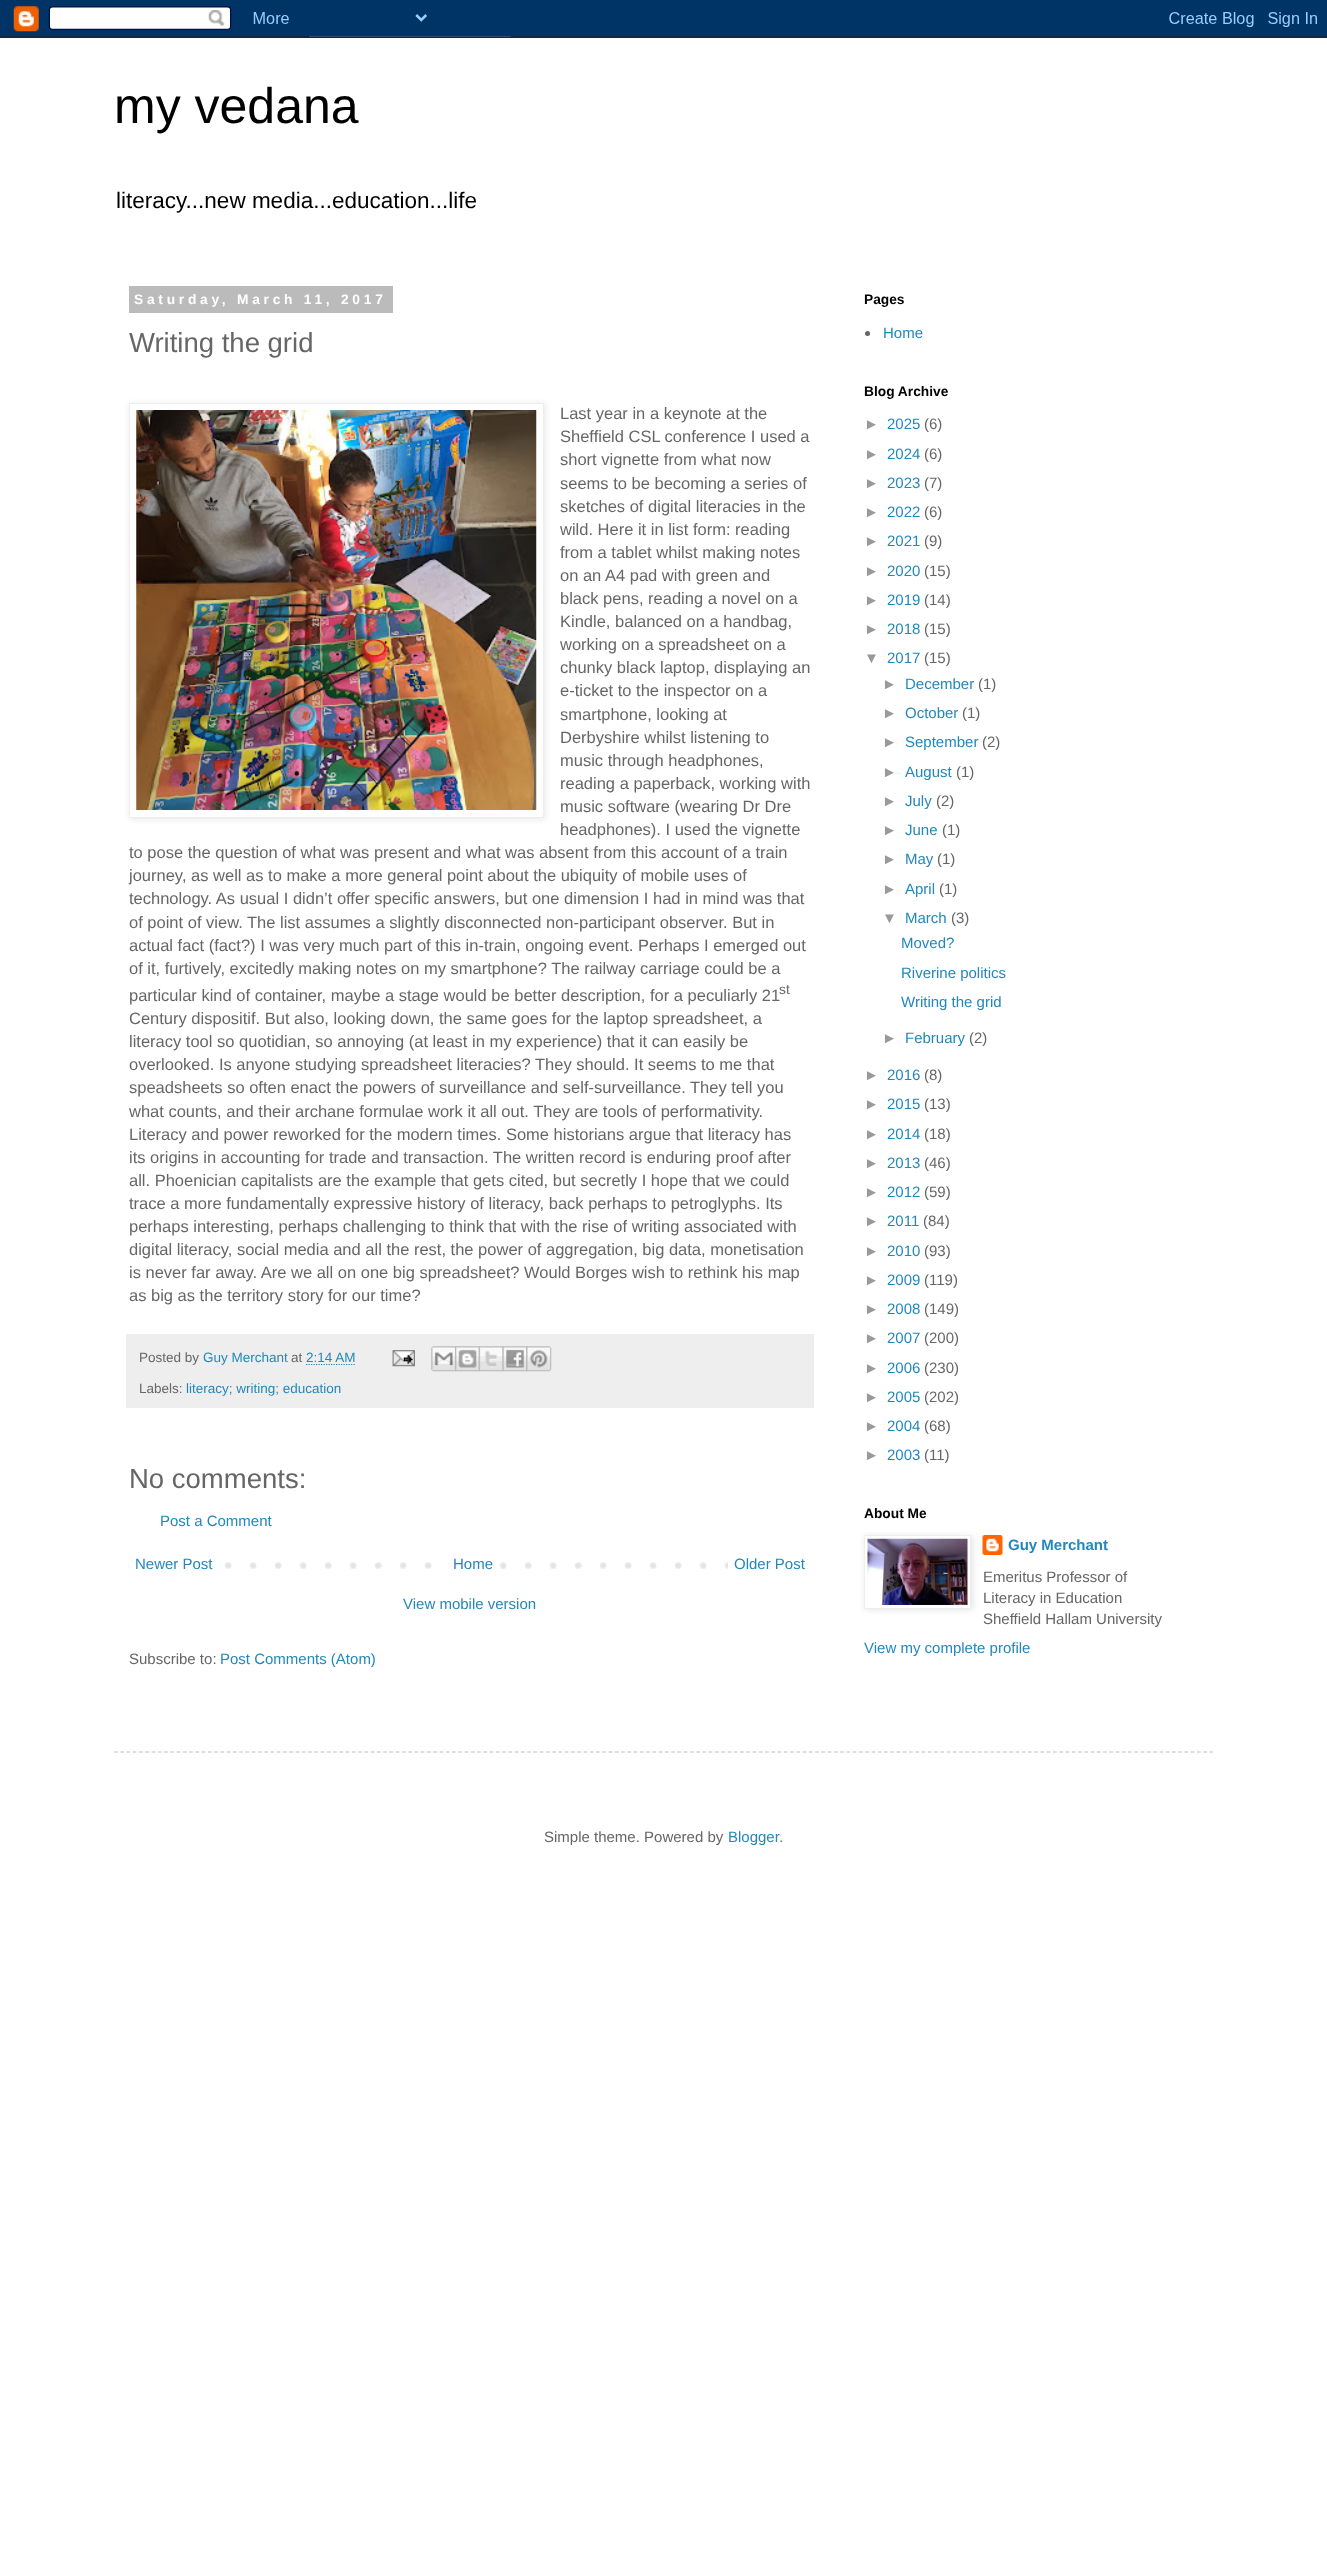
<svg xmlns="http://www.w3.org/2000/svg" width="1327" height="2567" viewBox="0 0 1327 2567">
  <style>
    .t1 { font: 50px Liberation Sans; fill: #000; }
    .t2 { font: 22.5px Liberation Sans; fill: #000; }
    .t3 { font: bold 13.75px Liberation Sans; letter-spacing: 3.75px; fill: #fff; }
    .t4 { font: 27.5px Liberation Sans; fill: #666; }
    .t5 { font: 16.5px Liberation Sans; fill: #666; }
    .t6 { font: 13.75px Liberation Sans; fill: #666; }
    .t7 { font: 13.5px Liberation Sans; fill: #666; }
    .t8 { font: 13.5px Liberation Sans; fill: #28b; }
    .t9 { font: 15px Liberation Sans; fill: #28b; }
    .t10 { font: 15px Liberation Sans; fill: #666; }
    .t11 { font: bold 13.75px Liberation Sans; fill: #000; }
    .t12 { font: 15px Liberation Sans; fill: #999; }
    .t13 { font: bold 15px Liberation Sans; fill: #28b; }
  </style>
  <rect width="100%" height="100%" fill="#fff"/>
  <image x="0" y="0" width="1327" height="38" href="images/1.png"/>
  <text x="114" y="123" class="t1">my vedana</text>
  <text x="116" y="208" class="t2">literacy...new media...education...life</text>
  <rect x="129" y="286" width="264" height="27" fill="#bbb"/>
  <text x="134" y="304" class="t3">Saturday, March 11, 2017</text>
  <text x="129" y="352" class="t4">Writing the grid</text>
  <rect x="130" y="404" width="415" height="415" fill="#0000001a" filter="blur(3px)"/>
  <rect x="129.5" y="403.5" width="414" height="414" fill="#fff" stroke="#eee"/>
  <image x="136" y="410" width="401" height="400" href="images/2.png"/>
  <text x="560" y="419" class="t5">Last year in a keynote at the</text>
  <text x="560" y="442" class="t5">Sheffield CSL conference I used a</text>
  <text x="560" y="465" class="t5">short vignette from what now</text>
  <text x="560" y="489" class="t5">seems to be becoming a series of</text>
  <text x="560" y="512" class="t5">sketches of digital literacies in the</text>
  <text x="560" y="535" class="t5">wild. Here it in list form: reading</text>
  <text x="560" y="558" class="t5">from a tablet whilst making notes</text>
  <text x="560" y="581" class="t5">on an A4 pad with green and</text>
  <text x="560" y="604" class="t5">black pens, reading a novel on a</text>
  <text x="560" y="627" class="t5">Kindle, balanced on a handbag,</text>
  <text x="560" y="650" class="t5">working on a spreadsheet on a</text>
  <text x="560" y="673" class="t5">chunky black laptop, displaying an</text>
  <text x="560" y="696" class="t5">e-ticket to the inspector on a</text>
  <text x="560" y="720" class="t5">smartphone, looking at</text>
  <text x="560" y="743" class="t5">Derbyshire whilst listening to</text>
  <text x="560" y="766" class="t5">music through headphones,</text>
  <text x="560" y="789" class="t5">reading a paperback, working with</text>
  <text x="560" y="812" class="t5">music software (wearing Dr Dre</text>
  <text x="560" y="835" class="t5">headphones). I used the vignette</text>
  <text x="129" y="858" class="t5">to pose the question of what was present and what was absent from this account of a train</text>
  <text x="129" y="881" class="t5">journey, as well as to make a more general point about the ubiquity of mobile uses of</text>
  <text x="129" y="904" class="t5">technology. As usual I didn’t offer specific answers, but one dimension I had in mind was that</text>
  <text x="129" y="928" class="t5">of point of view. The list assumes a slightly disconnected non-participant observer. But in</text>
  <text x="129" y="951" class="t5">actual fact (fact?) I was very much part of this in-train, ongoing event. Perhaps I emerged out</text>
  <text x="129" y="974" class="t5">of it, furtively, excitedly making notes on my smartphone? The railway carriage could be a</text>
  <text x="129" y="1001" class="t5">particular kind of container, maybe a stage would be better description, for a peculiarly 21</text>
  <text x="779" y="994" class="t6">st</text>
  <text x="129" y="1024" class="t5">Century dispositif. But also, looking down, the same goes for the laptop spreadsheet, a</text>
  <text x="129" y="1047" class="t5">literacy tool so quotidian, so annoying (at least in my experience) that it can easily be</text>
  <text x="129" y="1070" class="t5">overlooked. Is anyone studying spreadsheet literacies? They should. It seems to me that</text>
  <text x="129" y="1093" class="t5">speadsheets so often enact the powers of surveillance and self-surveillance. They tell you</text>
  <text x="129" y="1117" class="t5">what counts, and their archane formulae work it all out. They are tools of performativity.</text>
  <text x="129" y="1140" class="t5">Literacy and power reworked for the modern times. Some historians argue that literacy has</text>
  <text x="129" y="1163" class="t5">its origins in accounting for trade and transaction. The written record is enduring proof after</text>
  <text x="129" y="1186" class="t5">all. Phoenician capitalists are the example that gets cited, but secretly I hope that we could</text>
  <text x="129" y="1209" class="t5">trace a more fundamentally expressive history of literacy, back perhaps to petroglyphs. Its</text>
  <text x="129" y="1232" class="t5">perhaps interesting, perhaps challenging to think that with the rise of writing associated with</text>
  <text x="129" y="1255" class="t5">digital literacy, social media and all the rest, the power of aggregation, big data, monetisation</text>
  <text x="129" y="1278" class="t5">is never far away. Are we all on one big spreadsheet? Would Borges wish to rethink his map</text>
  <text x="129" y="1301" class="t5">as big as the territory story for our time?</text>
  <rect x="126" y="1334" width="688" height="74" fill="#eee"/>
  <text x="139" y="1362" class="t7">Posted by</text>
  <text x="203" y="1362" class="t8">Guy Merchant</text>
  <text x="291" y="1362" class="t7">at</text>
  <text x="306" y="1362" class="t8">2:14 AM</text>
  <path d="M306 1364.5H355.5" fill="none" stroke="#28b" stroke-width="1.2" stroke-dasharray="1.25 1.25"/>
  <image x="392" y="1350" width="23" height="17" href="images/3.png"/>
  <image x="431" y="1346" width="26" height="26" href="images/4.png"/>
  <image x="455" y="1346" width="25" height="26" href="images/5.png"/>
  <image x="478" y="1346" width="26" height="26" href="images/6.png"/>
  <image x="502" y="1346" width="26" height="26" href="images/7.png"/>
  <image x="526" y="1346" width="26" height="26" href="images/8.png"/>
  <text x="139" y="1393" class="t7">Labels:</text>
  <text x="186" y="1393" class="t8">literacy; writing; education</text>
  <text x="129" y="1488" class="t4">No comments:</text>
  <text x="160" y="1526" class="t9">Post a Comment</text>
  <image x="128" y="1562" width="600" height="7" href="images/9.png"/>
  <rect x="129" y="1562" width="78" height="7" fill="#fff"/>
  <text x="135" y="1569" class="t9">Newer Post</text>
  <rect x="449" y="1562" width="51" height="7" fill="#fff"/>
  <text x="453" y="1569" class="t9">Home</text>
  <text x="734" y="1569" class="t9">Older Post</text>
  <text x="403" y="1609" class="t9">View mobile version</text>
  <text x="129" y="1664" class="t10">Subscribe to:</text>
  <text x="220" y="1664" class="t9">Post Comments (Atom)</text>
  <text x="864" y="304" class="t11">Pages</text>
  <circle cx="867.5" cy="333.5" r="2.5" fill="#666"/>
  <text x="883" y="338" class="t9">Home</text>
  <text x="864" y="396" class="t11">Blog Archive</text>
  <text x="864" y="429" class="t12">►</text>
  <text x="887" y="429" class="t9">2025</text>
  <text x="924" y="429" class="t10">(6)</text>
  <text x="864" y="459" class="t12">►</text>
  <text x="887" y="459" class="t9">2024</text>
  <text x="924" y="459" class="t10">(6)</text>
  <text x="864" y="488" class="t12">►</text>
  <text x="887" y="488" class="t9">2023</text>
  <text x="924" y="488" class="t10">(7)</text>
  <text x="864" y="517" class="t12">►</text>
  <text x="887" y="517" class="t9">2022</text>
  <text x="924" y="517" class="t10">(6)</text>
  <text x="864" y="546" class="t12">►</text>
  <text x="887" y="546" class="t9">2021</text>
  <text x="924" y="546" class="t10">(9)</text>
  <text x="864" y="576" class="t12">►</text>
  <text x="887" y="576" class="t9">2020</text>
  <text x="924" y="576" class="t10">(15)</text>
  <text x="864" y="605" class="t12">►</text>
  <text x="887" y="605" class="t9">2019</text>
  <text x="924" y="605" class="t10">(14)</text>
  <text x="864" y="634" class="t12">►</text>
  <text x="887" y="634" class="t9">2018</text>
  <text x="924" y="634" class="t10">(15)</text>
  <text x="864" y="663" class="t12">▼</text>
  <text x="887" y="663" class="t9">2017</text>
  <text x="924" y="663" class="t10">(15)</text>
  <text x="882" y="689" class="t12">►</text>
  <text x="905" y="689" class="t9">December</text>
  <text x="978" y="689" class="t10">(1)</text>
  <text x="882" y="718" class="t12">►</text>
  <text x="905" y="718" class="t9">October</text>
  <text x="962" y="718" class="t10">(1)</text>
  <text x="882" y="747" class="t12">►</text>
  <text x="905" y="747" class="t9">September</text>
  <text x="982" y="747" class="t10">(2)</text>
  <text x="882" y="777" class="t12">►</text>
  <text x="905" y="777" class="t9">August</text>
  <text x="956" y="777" class="t10">(1)</text>
  <text x="882" y="806" class="t12">►</text>
  <text x="905" y="806" class="t9">July</text>
  <text x="936" y="806" class="t10">(2)</text>
  <text x="882" y="835" class="t12">►</text>
  <text x="905" y="835" class="t9">June</text>
  <text x="942" y="835" class="t10">(1)</text>
  <text x="882" y="864" class="t12">►</text>
  <text x="905" y="864" class="t9">May</text>
  <text x="937" y="864" class="t10">(1)</text>
  <text x="882" y="894" class="t12">►</text>
  <text x="905" y="894" class="t9">April</text>
  <text x="939" y="894" class="t10">(1)</text>
  <text x="882" y="923" class="t12">▼</text>
  <text x="905" y="923" class="t9">March</text>
  <text x="951" y="923" class="t10">(3)</text>
  <text x="901" y="948" class="t9">Moved?</text>
  <text x="901" y="978" class="t9">Riverine politics</text>
  <text x="901" y="1007" class="t9">Writing the grid</text>
  <text x="882" y="1043" class="t12">►</text>
  <text x="905" y="1043" class="t9">February</text>
  <text x="969" y="1043" class="t10">(2)</text>
  <text x="864" y="1080" class="t12">►</text>
  <text x="887" y="1080" class="t9">2016</text>
  <text x="924" y="1080" class="t10">(8)</text>
  <text x="864" y="1109" class="t12">►</text>
  <text x="887" y="1109" class="t9">2015</text>
  <text x="924" y="1109" class="t10">(13)</text>
  <text x="864" y="1139" class="t12">►</text>
  <text x="887" y="1139" class="t9">2014</text>
  <text x="924" y="1139" class="t10">(18)</text>
  <text x="864" y="1168" class="t12">►</text>
  <text x="887" y="1168" class="t9">2013</text>
  <text x="924" y="1168" class="t10">(46)</text>
  <text x="864" y="1197" class="t12">►</text>
  <text x="887" y="1197" class="t9">2012</text>
  <text x="924" y="1197" class="t10">(59)</text>
  <text x="864" y="1226" class="t12">►</text>
  <text x="887" y="1226" class="t9">2011</text>
  <text x="923" y="1226" class="t10">(84)</text>
  <text x="864" y="1256" class="t12">►</text>
  <text x="887" y="1256" class="t9">2010</text>
  <text x="924" y="1256" class="t10">(93)</text>
  <text x="864" y="1285" class="t12">►</text>
  <text x="887" y="1285" class="t9">2009</text>
  <text x="924" y="1285" class="t10">(119)</text>
  <text x="864" y="1314" class="t12">►</text>
  <text x="887" y="1314" class="t9">2008</text>
  <text x="924" y="1314" class="t10">(149)</text>
  <text x="864" y="1343" class="t12">►</text>
  <text x="887" y="1343" class="t9">2007</text>
  <text x="924" y="1343" class="t10">(200)</text>
  <text x="864" y="1373" class="t12">►</text>
  <text x="887" y="1373" class="t9">2006</text>
  <text x="924" y="1373" class="t10">(230)</text>
  <text x="864" y="1402" class="t12">►</text>
  <text x="887" y="1402" class="t9">2005</text>
  <text x="924" y="1402" class="t10">(202)</text>
  <text x="864" y="1431" class="t12">►</text>
  <text x="887" y="1431" class="t9">2004</text>
  <text x="924" y="1431" class="t10">(68)</text>
  <text x="864" y="1460" class="t12">►</text>
  <text x="887" y="1460" class="t9">2003</text>
  <text x="924" y="1460" class="t10">(11)</text>
  <text x="864" y="1518" class="t11">About Me</text>
  <image x="982" y="1535" width="21" height="20" href="images/11.png"/>
  <rect x="865" y="1536" width="108" height="74" fill="#0000001a" filter="blur(3px)"/>
  <rect x="864.5" y="1535.5" width="106" height="73" fill="#fff" stroke="#eee"/>
  <image x="867" y="1538" width="101" height="67" href="images/10.png"/>
  <text x="1008" y="1550" class="t13">Guy Merchant</text>
  <text x="983" y="1582" class="t10">Emeritus Professor of</text>
  <text x="983" y="1603" class="t10">Literacy in Education</text>
  <text x="983" y="1624" class="t10">Sheffield Hallam University</text>
  <text x="864" y="1653" class="t9">View my complete profile</text>
  <path d="M114 1752H1214" fill="none" stroke="#bbb" stroke-width="1.2" stroke-dasharray="3.75 2.51"/>
  <text x="544" y="1842" class="t10">Simple theme. Powered by</text>
  <text x="728" y="1842" class="t9">Blogger</text>
  <text x="779" y="1842" class="t10">.</text>
</svg>
